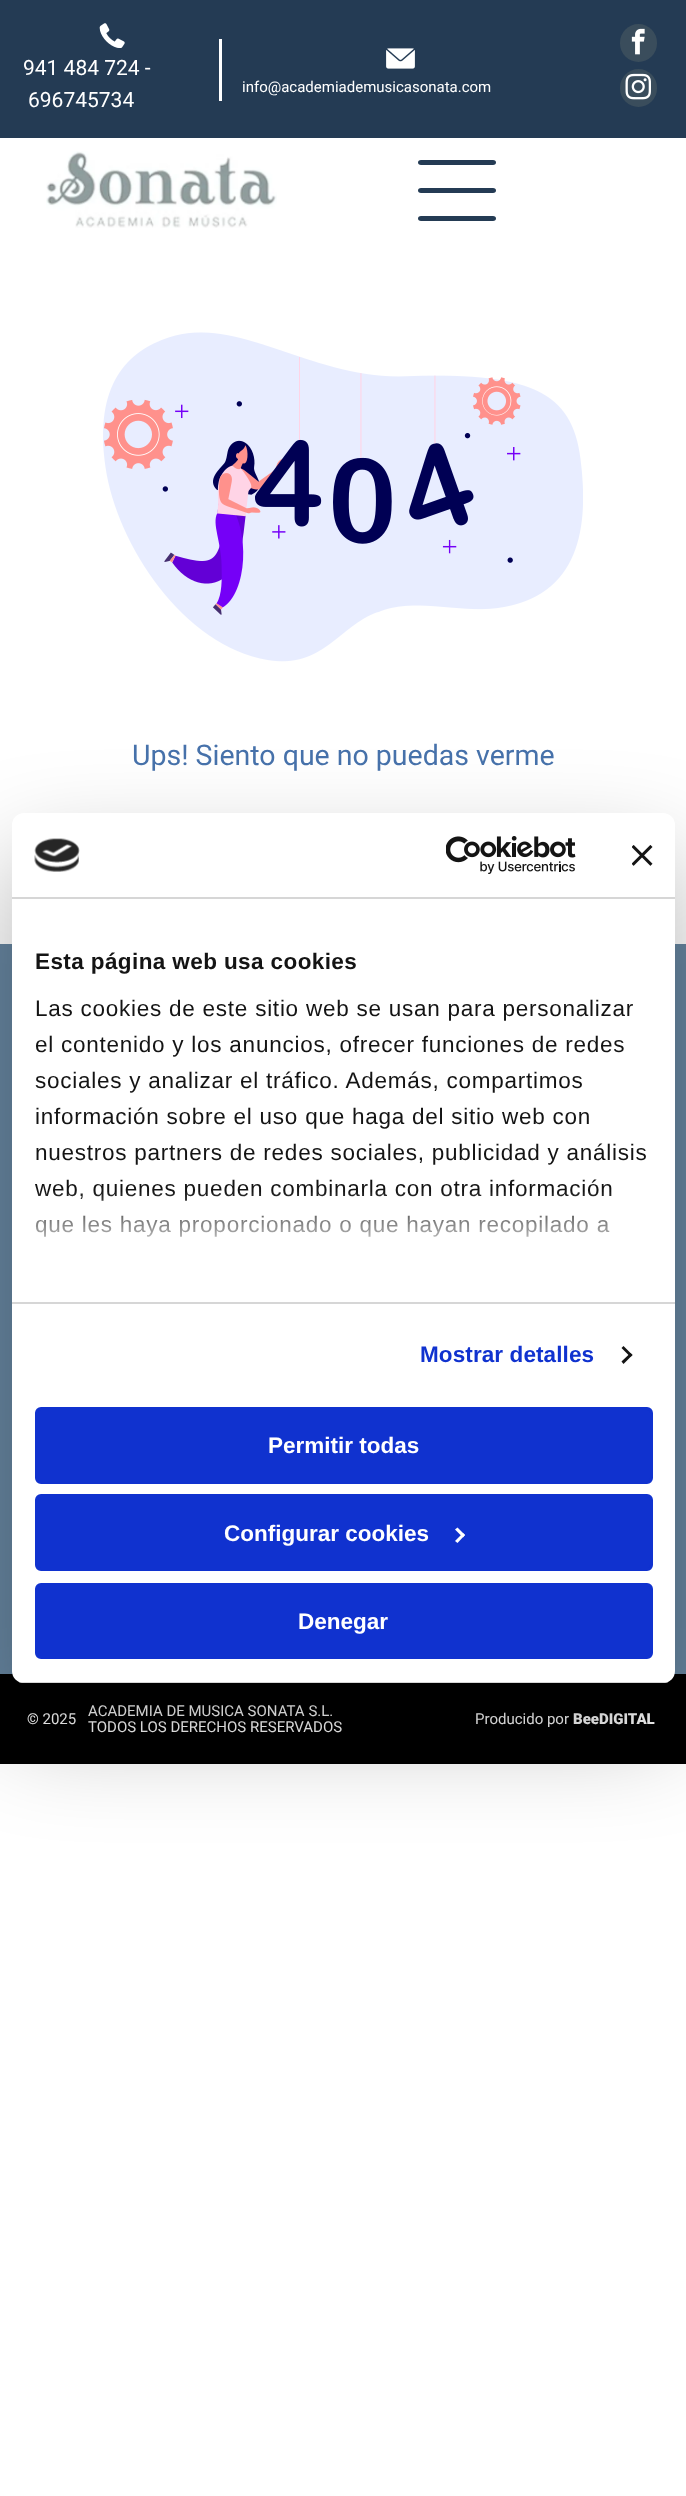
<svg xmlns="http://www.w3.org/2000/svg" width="686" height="2496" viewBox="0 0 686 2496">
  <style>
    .t1 { font: 21px Roboto; fill: #fff; }
    .t2 { font: 15px Roboto; fill: #fff; }
    .t3 { font: 28.5px Roboto; fill: #4772ab; }
    .t4 { font: 900 15px Roboto; fill: #fff; }
    .t5 { font: bold 22.5px Liberation Sans; letter-spacing: 0.4px; fill: #141414; }
    .t6 { font: 22.5px Liberation Sans; letter-spacing: 0.75px; fill: #141414; }
    .t7 { font: bold 22.5px Liberation Sans; letter-spacing: 0.1px; fill: #1032cf; }
    .t8 { font: bold 22.5px Liberation Sans; fill: #fff; }
  </style>
  <defs>
    <linearGradient id="g1" gradientUnits="userSpaceOnUse" x1="334" y1="1302" x2="334" y2="1190"><stop offset="0" stop-color="#fff"/><stop offset="0.5" stop-color="#fff" stop-opacity="0.8"/><stop offset="1" stop-color="#fff" stop-opacity="0"/></linearGradient>
    <clipPath id="clip1"><rect x="12" y="813" width="663" height="870" rx="12"/></clipPath>
  </defs>
  <rect width="100%" height="100%" fill="#fff"/>
  <rect x="0" y="0" width="686" height="138" fill="#243b54"/>
  <image x="99" y="23" width="26" height="25" href="images/1.png"/>
  <text x="23" y="75" class="t1">941 484 724 -</text>
  <text x="28" y="107" class="t1">696745734</text>
  <rect x="219" y="39" width="3" height="62" fill="#fff"/>
  <image x="386" y="48" width="29" height="21" href="images/2.png"/>
  <text x="242" y="92" class="t2">info@academiademusicasonata.com</text>
  <rect x="620" y="24" width="37" height="38" rx="18.5" fill="#3a4d5c"/>
  <image x="631" y="28" width="14" height="27" href="images/3.png"/>
  <rect x="620" y="69" width="37" height="38" rx="18.5" fill="#3a4d5c"/>
  <image x="625" y="73" width="26" height="27" href="images/4.png"/>
  <image x="46" y="151" width="231" height="77" href="images/5.png"/>
  <path d="M421 160C417 160 417 165 421 165H493C497 165 497 160 493 160ZM421 188C417 188 417 193 421 193H493C497 193 497 188 493 188ZM421 216C417 216 417 221 421 221H493C497 221 497 216 493 216Z" fill="#243b54"/>
  <image x="103" y="332" width="480" height="330" href="images/6.png"/>
  <text x="132" y="765" class="t3">Ups! Siento que no puedas verme</text>
  <rect x="0" y="1674" width="686" height="90" fill="#000"/>
  <rect x="0" y="944" width="686" height="730" fill="#6786a1"/>
  <text x="27" y="1724" class="t2">© 2025</text>
  <text x="88" y="1716" class="t2">ACADEMIA DE MUSICA SONATA S.L.</text>
  <text x="88" y="1732" class="t2">TODOS LOS DERECHOS RESERVADOS</text>
  <text x="475" y="1724" class="t2">Producido por</text>
  <text x="573" y="1724" class="t4">BeeDIGITAL</text>
  <rect x="12" y="861" width="663" height="870" rx="12" fill="#0000004d" filter="blur(51px)"/>
  <rect x="12" y="813" width="663" height="870" rx="12" fill="#fff"/>
  <rect x="12" y="897" width="663" height="2" fill="#d6d6d6"/>
  <image x="34" y="838" width="46" height="34" href="images/7.png"/>
  <image x="446" y="836" width="130" height="38" href="images/8.png"/>
  <image x="632" y="845" width="21" height="21" href="images/9.png"/>
  <rect x="12" y="1302" width="663" height="2" fill="#d6d6d6"/>
  <text x="35" y="969" class="t5">Esta página web usa cookies</text>
  <text x="35" y="1016" class="t6">Las cookies de este sitio web se usan para personalizar</text>
  <text x="35" y="1052" class="t6">el contenido y los anuncios, ofrecer funciones de redes</text>
  <text x="35" y="1088" class="t6">sociales y analizar el tráfico. Además, compartimos</text>
  <text x="35" y="1124" class="t6">información sobre el uso que haga del sitio web con</text>
  <text x="35" y="1160" class="t6">nuestros partners de redes sociales, publicidad y análisis</text>
  <text x="35" y="1196" class="t6">web, quienes pueden combinarla con otra información</text>
  <text x="35" y="1232" class="t6">que les haya proporcionado o que hayan recopilado a</text>
  <rect x="35" y="1192" width="576" height="45" fill="url(#g1)"/>
  <text x="420" y="1362" class="t7">Mostrar detalles</text>
  <path d="M623.5 1346L632.5 1355L630.5 1357L621.5 1348Z" fill="#141414"/>
  <path d="M630.5 1353L632.5 1355L623.5 1364L621.5 1361.5Z" fill="#141414"/>
  <g clip-path="url(#clip1)">
    <rect x="12" y="1682" width="663" height="1" fill="#d6d6d6"/>
  </g>
  <rect x="36.5" y="1408.5" width="615" height="74" rx="4.5" fill="#1032cf" stroke="#1032cf" stroke-width="3"/>
  <text x="268" y="1453" class="t8">Permitir todas</text>
  <rect x="36.5" y="1495.5" width="615" height="74" rx="4.5" fill="#1032cf" stroke="#1032cf" stroke-width="3"/>
  <text x="224" y="1541" class="t8">Configurar cookies</text>
  <path d="M457.5 1527.5L465 1535L463 1537.5L455 1529.5Z" fill="#fff"/>
  <path d="M463 1533L465 1535L457.5 1543L455 1541Z" fill="#fff"/>
  <rect x="36.5" y="1584.5" width="615" height="73" rx="4.5" fill="#1032cf" stroke="#1032cf" stroke-width="3"/>
  <text x="298" y="1629" class="t8">Denegar</text>
</svg>
